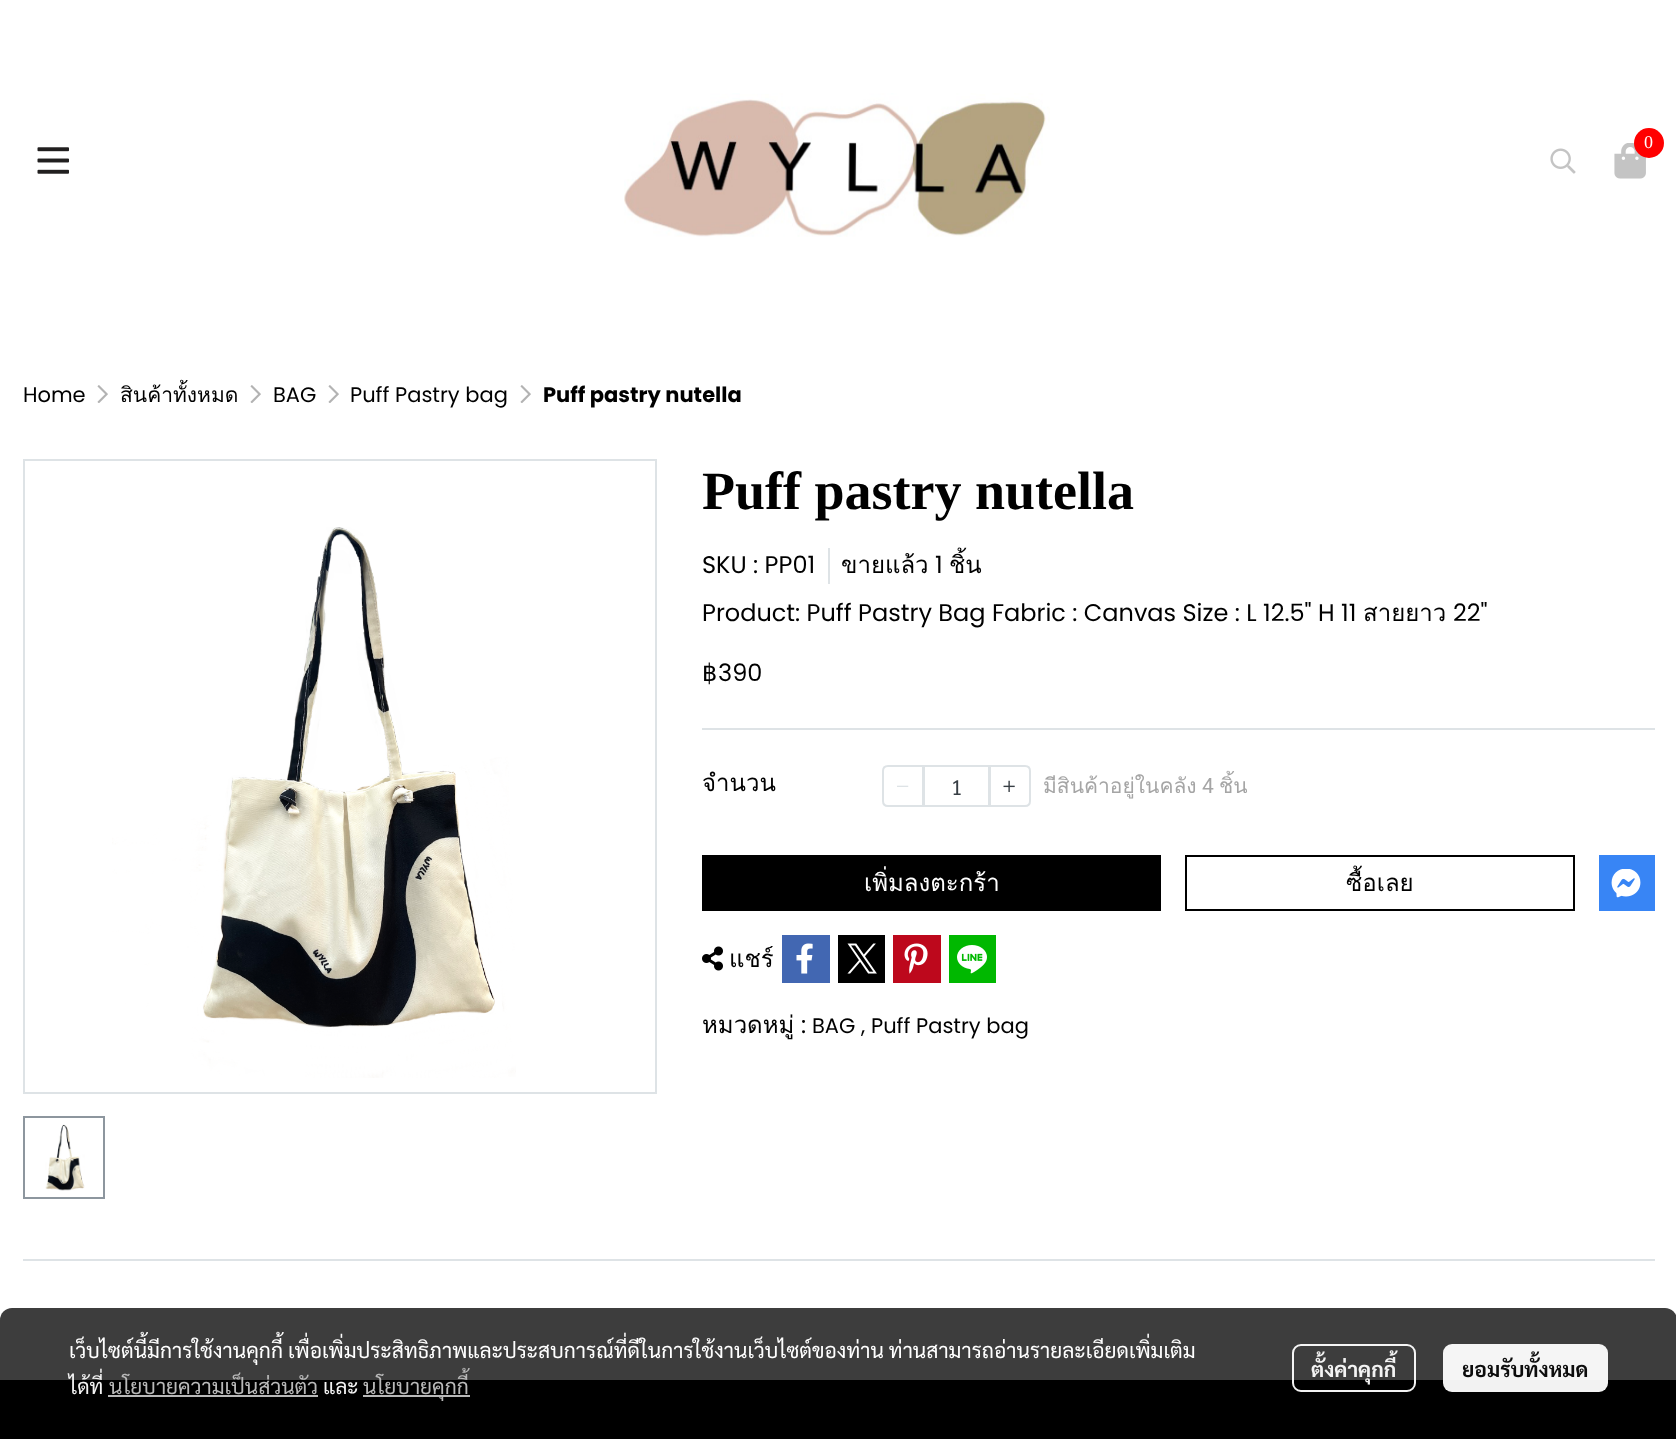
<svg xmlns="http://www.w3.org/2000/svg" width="1676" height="1439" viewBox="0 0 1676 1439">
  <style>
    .t1 { font: 18px Liberation Serif; fill: #fff; }
    .t2 { font: 21px Poppins; fill: #000; }
    .t3 { font: 21px Loma; fill: #000; }
    .t4 { font: bold 21px Poppins; fill: #000; }
    .t5 { font: bold 54px Liberation Serif; fill: #000; }
    .t6 { font: 24px Poppins; fill: #000; }
    .t7 { font: 24px Loma; fill: #000; }
    .t8 { font: 24px DejaVu Sans; fill: #000; }
    .t9 { font: 21px Sarabun; fill: #373e44; }
    .t10 { font: 21px Loma; fill: #a5a5a5; }
    .t11 { font: 21px Roboto; fill: #a5a5a5; }
    .t12 { font: 24px Loma; fill: #fff; }
    .t13 { font: 21px Sarabun; fill: #fff; }
    .t14 { font: 21px Sarabun; fill: #f3f3f3; }
    .t15 { font: 21px Sarabun; fill: #b9b9b9; }
    .t16 { font: bold 21px Sarabun; fill: #f3f3f3; }
    .t17 { font: bold 21px Sarabun; fill: #0d0d0d; }
  </style>
  <rect width="100%" height="100%" fill="#fff"/>
  <image x="624" y="93" width="426" height="144" href="images/1.png"/>
  <image x="1614" y="143" width="32" height="36" href="images/2.png"/>
  <circle cx="1649" cy="143" r="15" fill="#f00"/>
  <text x="1644" y="148" class="t1">0</text>
  <image x="1550" y="148" width="26" height="26" href="images/3.png"/>
  <image x="37" y="147" width="32" height="27" href="images/4.png"/>
  <text x="23" y="402" class="t2">Home</text>
  <image x="97" y="385" width="11" height="18" href="images/5.png"/>
  <text x="120" y="402" class="t3">สินค้าทั้งหมด</text>
  <image x="250" y="385" width="11" height="18" href="images/5.png"/>
  <text x="273" y="402" class="t2">BAG</text>
  <image x="328" y="385" width="11" height="18" href="images/5.png"/>
  <text x="350" y="402" class="t2">Puff Pastry bag</text>
  <image x="520" y="385" width="11" height="18" href="images/5.png"/>
  <text x="543" y="402" class="t4">Puff pastry nutella</text>
  <image x="112" y="527" width="404" height="551" href="images/6.png"/>
  <rect x="24" y="460" width="632" height="633" fill="none" stroke="#dee3e6" stroke-width="2"/>
  <image x="45" y="1124" width="40" height="67" href="images/7.png"/>
  <rect x="24" y="1117" width="80" height="81" fill="none" stroke="#8d969e" stroke-width="2"/>
  <text x="702" y="509" class="t5">Puff pastry nutella</text>
  <rect x="828" y="548" width="2" height="36" fill="#dee3e6"/>
  <text x="702" y="573" class="t6">SKU : PP01</text>
  <text x="841" y="573" class="t7">ขายแล้ว</text>
  <text x="935" y="573" class="t6">1</text>
  <text x="949" y="573" class="t7">ชิ้น</text>
  <text x="702" y="621" class="t6">Product: Puff Pastry Bag Fabric : Canvas Size : L 12.5" H 11</text>
  <text x="1363" y="621" class="t7">สายยาว</text>
  <text x="1453" y="621" class="t6">22"</text>
  <text x="702" y="681" class="t8">฿</text>
  <text x="718" y="681" class="t6">390</text>
  <rect x="702" y="728" width="953" height="2" fill="#dee3e6"/>
  <text x="702" y="791" class="t7">จำนวน</text>
  <path d="M888 766H923V806H888C885 806 883 804 883 801V771C883 768 885 766 888 766Z" fill="none" stroke="#dee3e6" stroke-width="2"/>
  <image x="897" y="785" width="12" height="2" href="images/8.png"/>
  <path d="M990 766H1025C1028 766 1030 768 1030 771V801C1030 804 1028 806 1025 806H990Z" fill="none" stroke="#dee3e6" stroke-width="2"/>
  <rect x="924" y="766" width="65" height="40" fill="none" stroke="#dee3e6" stroke-width="2"/>
  <text x="951" y="795" class="t9">1</text>
  <image x="1003" y="780" width="12" height="12" href="images/9.png"/>
  <text x="1043" y="793" class="t10">มีสินค้าอยู่ในคลัง</text>
  <text x="1202" y="793" class="t11">4</text>
  <text x="1219" y="793" class="t10">ชิ้น</text>
  <rect x="702" y="855" width="459" height="56" fill="#000"/>
  <text x="864" y="891" class="t12">เพิ่มลงตะกร้า</text>
  <rect x="1186" y="856" width="388" height="54" fill="none" stroke="#000" stroke-width="2"/>
  <text x="1346" y="891" class="t7">ซื้อเลย</text>
  <rect x="1599" y="855" width="56" height="56" fill="#3885f5"/>
  <image x="1611" y="869" width="30" height="29" href="images/10.png"/>
  <image x="702" y="946" width="21" height="25" href="images/11.png"/>
  <text x="729" y="967" class="t7">แชร์</text>
  <image x="782" y="935" width="48" height="48" href="images/12.png"/>
  <image x="838" y="935" width="47" height="48" href="images/13.png"/>
  <image x="893" y="935" width="48" height="48" href="images/14.png"/>
  <image x="949" y="935" width="47" height="48" href="images/15.png"/>
  <text x="702" y="1033" class="t7">หมวดหมู่</text>
  <text x="801" y="1033" class="t6">:</text>
  <text x="812" y="1033" class="t2">BAG ,</text>
  <text x="871" y="1033" class="t2">Puff Pastry bag</text>
  <rect x="23" y="1259" width="1632" height="2" fill="#dee3e6"/>
  <rect x="0" y="1380" width="1676" height="59" fill="#000"/>
  <rect x="0" y="1308" width="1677" height="120" rx="12" fill="#000000c2"/>
  <text x="69" y="1358" class="t13">เว็บไซต์นี้มีการใช้งานคุกกี้ เพื่อเพิ่มประสิทธิภาพและประสบการณ์ที่ดีในการใช้งานเว็บไซต์ของท่าน ท่านสามารถอ่านรายละเอียดเพิ่มเติม</text>
  <text x="69" y="1394" class="t14">ได้ที่</text>
  <text x="109" y="1394" class="t15">นโยบายความเป็นส่วนตัว</text>
  <text x="323" y="1394" class="t14">และ</text>
  <rect x="108" y="1395" width="210" height="2" fill="#b8b8b8"/>
  <rect x="363" y="1395" width="107" height="2" fill="#b8b8b8"/>
  <text x="363" y="1394" class="t15">นโยบายคุกกี้</text>
  <rect x="1293" y="1345" width="122" height="46" rx="8" fill="none" stroke="#fffffff2" stroke-width="2"/>
  <text x="1311" y="1377" class="t16">ตั้งค่าคุกกี้</text>
  <rect x="1443" y="1344" width="165" height="48" rx="9" fill="#fffffff2"/>
  <text x="1462" y="1377" class="t17">ยอมรับทั้งหมด</text>
</svg>
